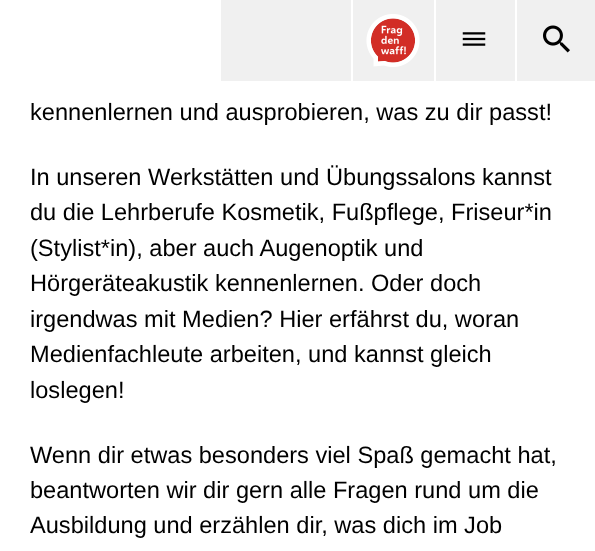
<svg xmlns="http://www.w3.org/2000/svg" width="595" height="551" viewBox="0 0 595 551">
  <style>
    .t1 { font: 23.6px Liberation Sans; fill: #000; }
  </style>
  <rect width="100%" height="100%" fill="#fff"/>
  <rect x="221" y="0" width="374" height="81" fill="#f0f0f0"/>
  <rect x="351" y="0" width="2" height="81" fill="#fff"/>
  <image x="366" y="14" width="54" height="53" href="images/1.png"/>
  <rect x="434" y="0" width="2" height="81" fill="#fff"/>
  <image x="462" y="32" width="24" height="14" href="images/2.png"/>
  <rect x="515" y="0" width="2" height="81" fill="#fff"/>
  <image x="543" y="25" width="27" height="28" href="images/3.png"/>
  <text x="30" y="120" class="t1">kennenlernen und ausprobieren, was zu dir passt!</text>
  <text x="30" y="185" class="t1">In unseren Werkstätten und Übungssalons kannst</text>
  <text x="30" y="220" class="t1">du die Lehrberufe Kosmetik, Fußpflege, Friseur*in</text>
  <text x="30" y="256" class="t1">(Stylist*in), aber auch Augenoptik und</text>
  <text x="30" y="291" class="t1">Hörgeräteakustik kennenlernen. Oder doch</text>
  <text x="30" y="327" class="t1">irgendwas mit Medien? Hier erfährst du, woran</text>
  <text x="30" y="362" class="t1">Medienfachleute arbeiten, und kannst gleich</text>
  <text x="30" y="398" class="t1">loslegen!</text>
  <text x="30" y="463" class="t1">Wenn dir etwas besonders viel Spaß gemacht hat,</text>
  <text x="30" y="498" class="t1">beantworten wir dir gern alle Fragen rund um die</text>
  <text x="30" y="533" class="t1">Ausbildung und erzählen dir, was dich im Job</text>
</svg>
